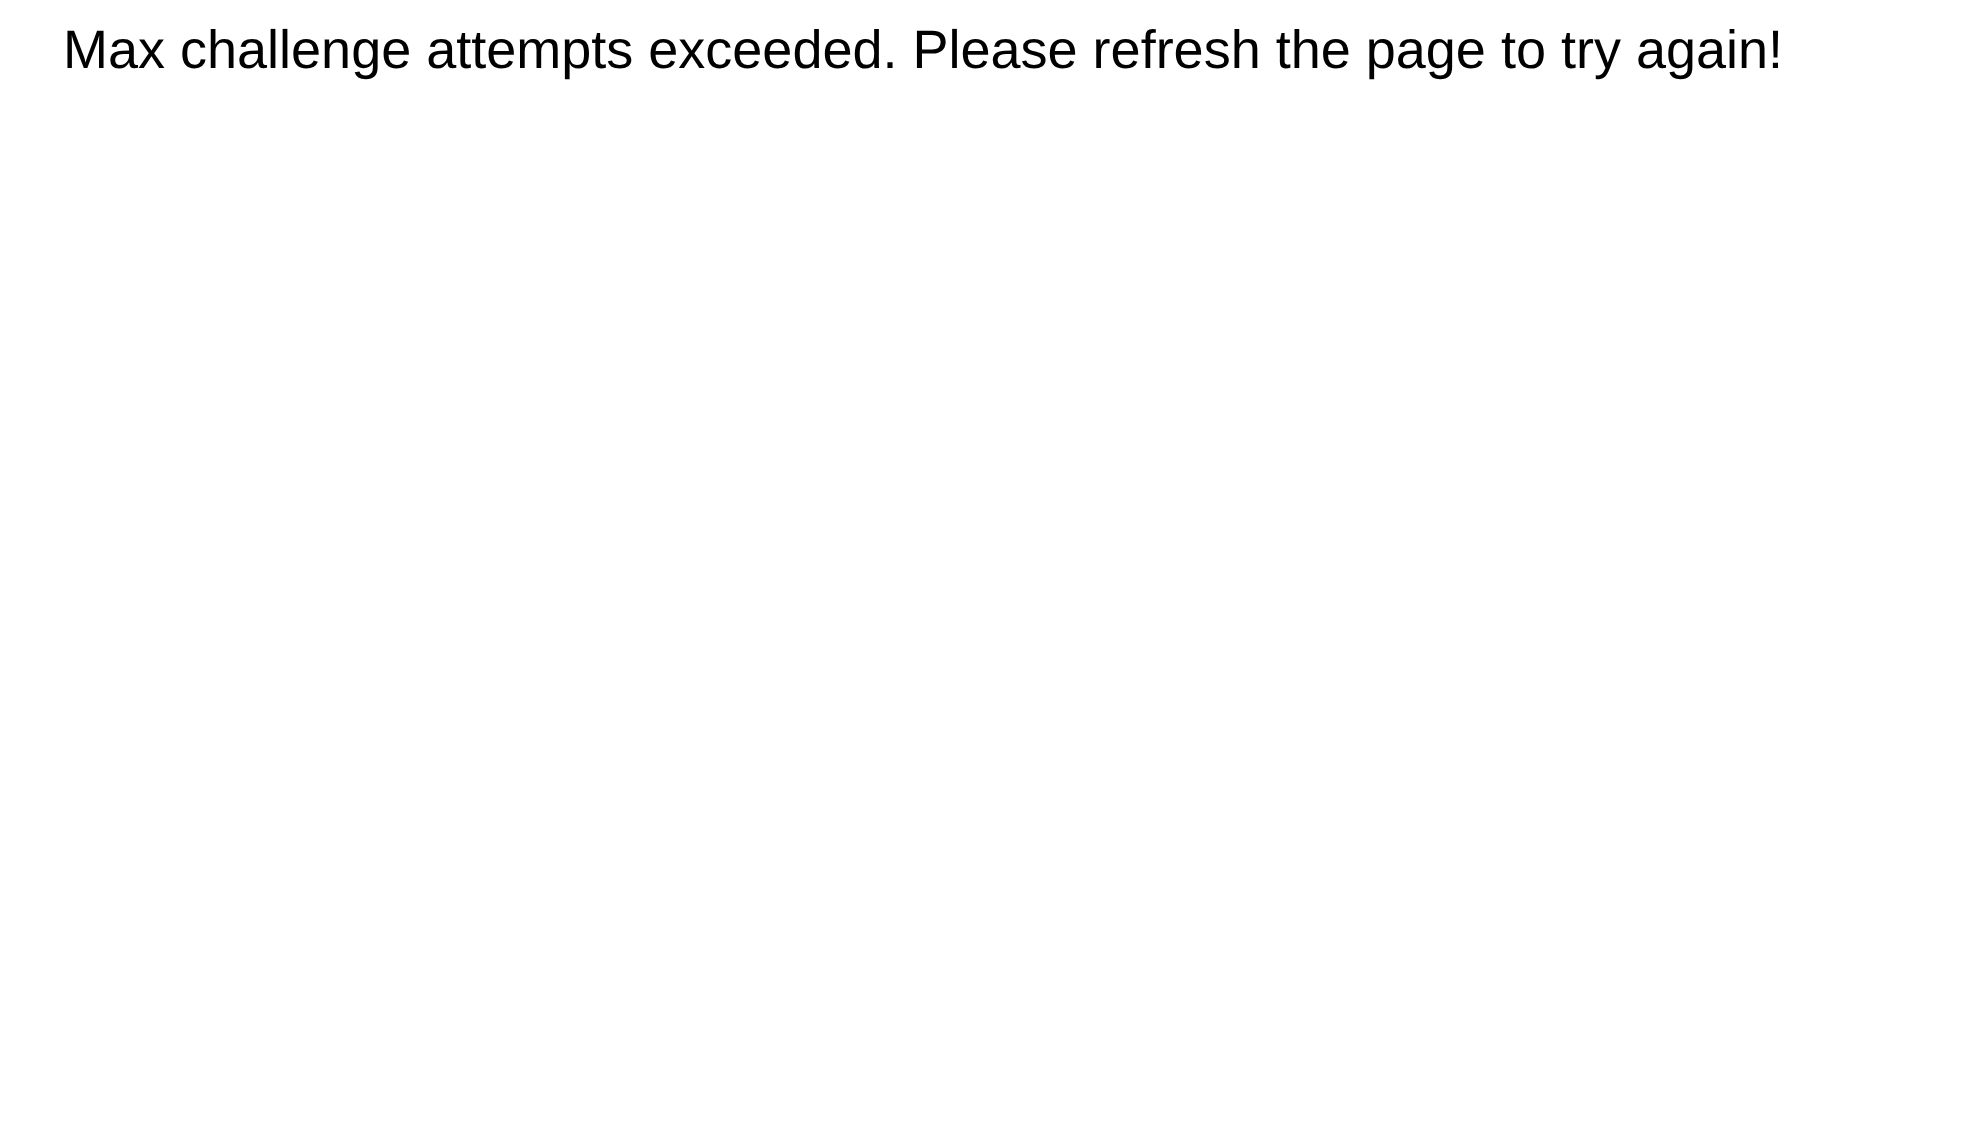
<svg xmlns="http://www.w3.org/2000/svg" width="1972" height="1122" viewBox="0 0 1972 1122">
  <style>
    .t1 { font: 54px Liberation Sans; fill: #000; }
  </style>
  <rect width="100%" height="100%" fill="#fff"/>
  <text x="63" y="68" class="t1">Max challenge attempts exceeded. Please refresh the page to try again!</text>
</svg>
